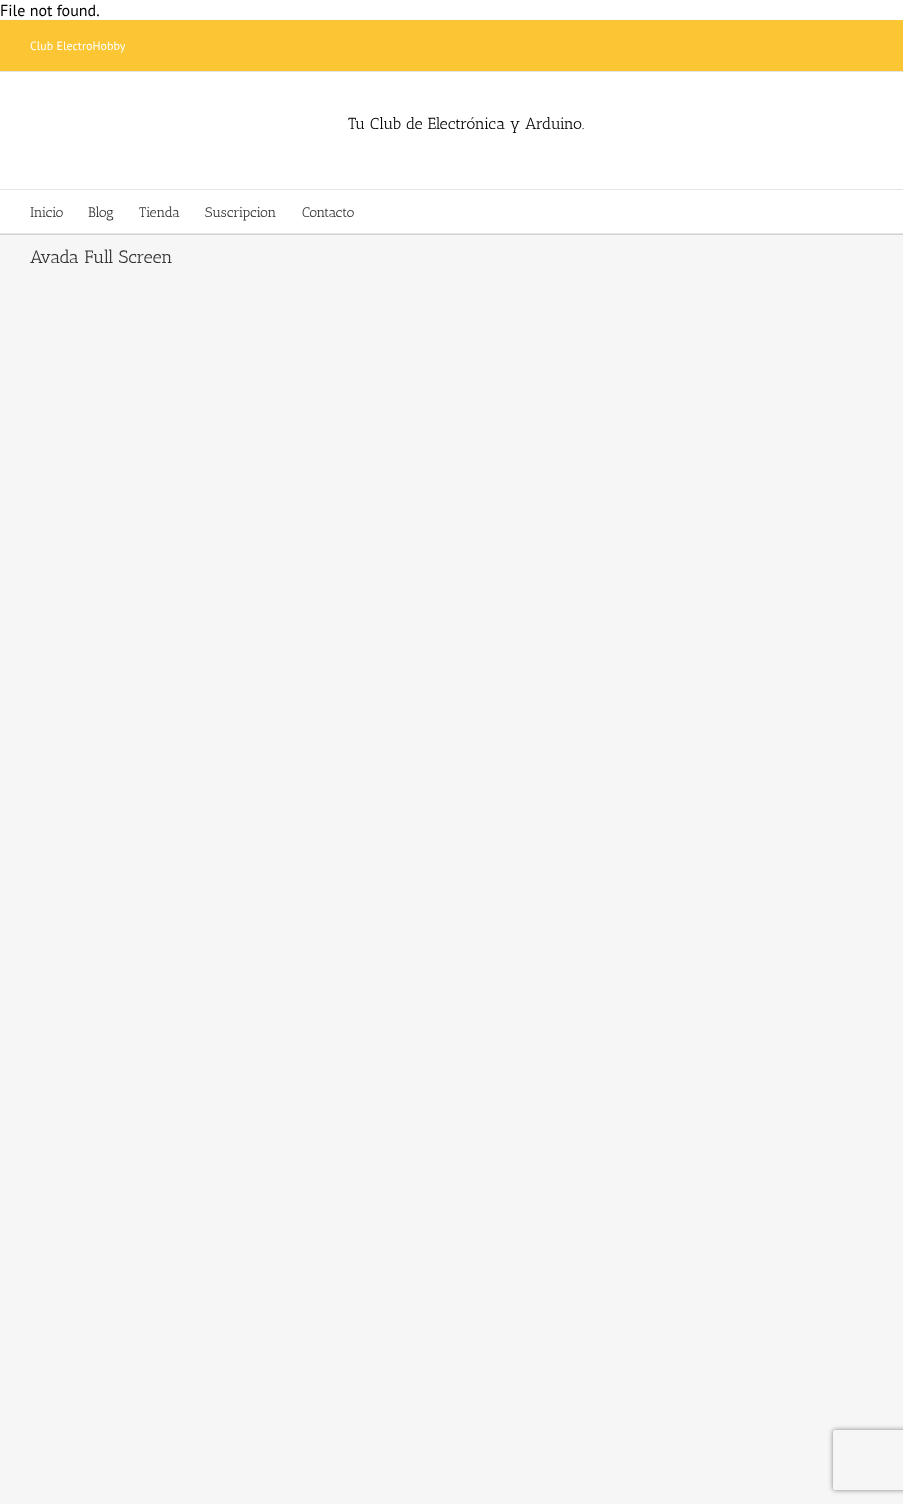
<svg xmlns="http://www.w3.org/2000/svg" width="903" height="1504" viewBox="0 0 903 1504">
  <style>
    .t1 { font: 16px PT Sans; fill: #000; }
    .t2 { font: 12px PT Sans; fill: #fff; }
    .t3 { font: 16px Antic Slab; fill: #000; }
    .t4 { font: 14px Antic Slab; fill: #333; }
    .t5 { font: 18px Antic Slab; fill: #333; }
  </style>
  <defs>
    <clipPath id="clip1"><path d="M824 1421H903V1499H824ZM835 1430H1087C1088 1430 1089 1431 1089 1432V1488C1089 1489 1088 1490 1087 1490H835C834 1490 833 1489 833 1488V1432C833 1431 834 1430 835 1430Z" clip-rule="evenodd"/></clipPath>
  </defs>
  <rect width="100%" height="100%" fill="#fff"/>
  <text x="0" y="16" class="t1">File not found.</text>
  <rect x="0" y="20" width="903" height="51" fill="#fcc533"/>
  <rect x="0" y="71" width="903" height="1" fill="#e5e5e5"/>
  <text x="30" y="50" class="t2">Club ElectroHobby</text>
  <rect x="0" y="189" width="903" height="1" fill="#e5e5e5"/>
  <text x="348" y="129" class="t3">Tu Club de Electrónica y Arduino.</text>
  <rect x="0" y="233" width="903" height="1" fill="#e5e5e5"/>
  <text x="30" y="217" class="t4">Inicio</text>
  <text x="88" y="217" class="t4">Blog</text>
  <text x="139" y="217" class="t4">Tienda</text>
  <text x="205" y="217" class="t4">Suscripcion</text>
  <text x="302" y="217" class="t4">Contacto</text>
  <rect x="0" y="235" width="903" height="1269" fill="#f6f6f6"/>
  <rect x="0" y="234" width="903" height="1" fill="#d2d3d4"/>
  <text x="30" y="263" class="t5">Avada Full Screen</text>
  <g clip-path="url(#clip1)">
    <rect x="833" y="1430" width="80" height="60" rx="2" fill="#808080" filter="blur(2.5px)"/>
  </g>
</svg>
